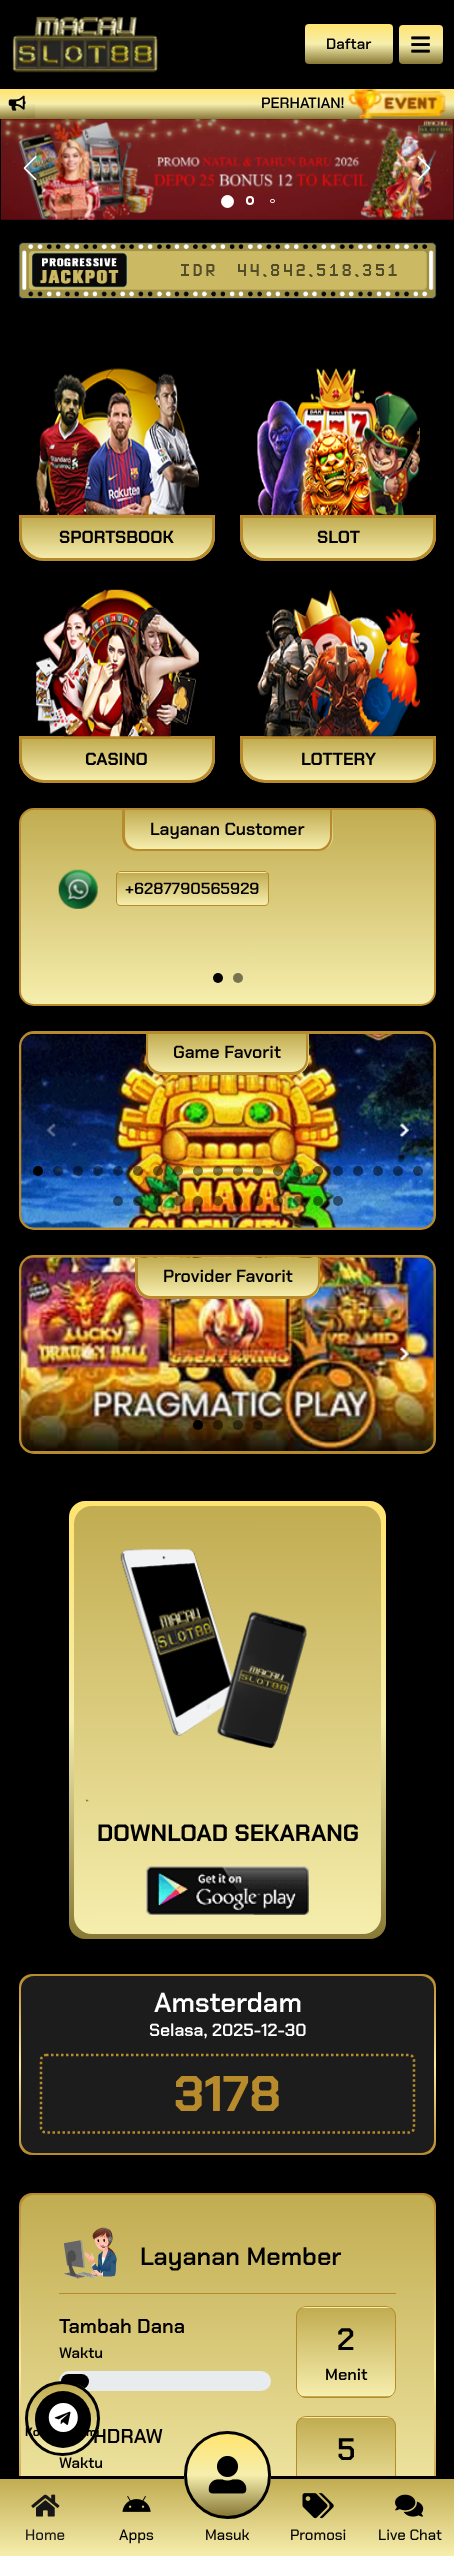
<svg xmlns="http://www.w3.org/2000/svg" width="454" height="2556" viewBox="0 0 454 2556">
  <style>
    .t1 { font: 600 15px Chakra Petch; fill: #000; }
    .t2 { font: bold 10px 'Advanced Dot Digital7'; letter-spacing: 3.75px; fill: #000; }
    .t3 { font: bold 17.5px Chakra Petch; fill: #000; }
    .t4 { font: 600 17.5px Chakra Petch; fill: #000; }
    .t5 { font: 600 16.25px Chakra Petch; fill: #000; }
    .t6 { font: bold 23.75px Chakra Petch; fill: #000; }
    .t7 { font: 600 27.5px Chakra Petch; fill: #fff; }
    .t8 { font: 600 17.5px Chakra Petch; fill: #fff; }
    .t9 { font: bold 50px Chakra Petch; fill: #b78a2c; }
    .t10 { font: 600 25px Chakra Petch; fill: #000; }
    .t11 { font: 600 20px Chakra Petch; fill: #000; }
    .t12 { font: 600 31px Chakra Petch; fill: #000; }
    .t13 { font: bold 12px Chakra Petch; fill: #000; }
    .t14 { font: 500 15px Chakra Petch; fill: #161616; }
    .t15 { font: 500 15px Chakra Petch; fill: #000; }
  </style>
  <defs>
    <linearGradient id="g1" gradientUnits="userSpaceOnUse" x1="349" y1="24" x2="349" y2="64"><stop offset="0" stop-color="#ffe46f"/><stop offset="0.5" stop-color="#f6eead"/><stop offset="1" stop-color="#887836"/></linearGradient>
    <linearGradient id="g2" gradientUnits="userSpaceOnUse" x1="421" y1="25" x2="421" y2="64"><stop offset="0" stop-color="#ffe46f"/><stop offset="0.5" stop-color="#f6eead"/><stop offset="1" stop-color="#887836"/></linearGradient>
    <linearGradient id="g3" gradientUnits="userSpaceOnUse" x1="228" y1="89" x2="228" y2="119"><stop offset="0" stop-color="#ffe46f"/><stop offset="0.5" stop-color="#f6eead"/><stop offset="1" stop-color="#887836"/></linearGradient>
    <linearGradient id="g4" gradientUnits="userSpaceOnUse" x1="17" y1="90" x2="18" y2="118"><stop offset="0" stop-color="#ffe46f"/><stop offset="0.5" stop-color="#f6eead"/><stop offset="1" stop-color="#887836"/></linearGradient>
    <clipPath id="clip1"><path d="M19 515H215V536C215 550 204 561 190 561H44C30 561 19 550 19 536Z"/></clipPath>
    <linearGradient id="g5" gradientUnits="userSpaceOnUse" x1="117" y1="518" x2="117" y2="559"><stop offset="0" stop-color="#c1ac51"/><stop offset="1" stop-color="#f6eead"/></linearGradient>
    <clipPath id="clip2"><path d="M240 515H436V536C436 550 425 561 411 561H265C251 561 240 550 240 536Z"/></clipPath>
    <linearGradient id="g6" gradientUnits="userSpaceOnUse" x1="338" y1="518" x2="338" y2="559"><stop offset="0" stop-color="#c1ac51"/><stop offset="1" stop-color="#f6eead"/></linearGradient>
    <clipPath id="clip3"><path d="M19 736H215V758C215 772 204 783 190 783H44C30 783 19 772 19 758Z"/></clipPath>
    <linearGradient id="g7" gradientUnits="userSpaceOnUse" x1="117" y1="739" x2="117" y2="780"><stop offset="0" stop-color="#c1ac51"/><stop offset="1" stop-color="#f6eead"/></linearGradient>
    <clipPath id="clip4"><path d="M240 736H436V758C436 772 425 783 411 783H265C251 783 240 772 240 758Z"/></clipPath>
    <linearGradient id="g8" gradientUnits="userSpaceOnUse" x1="338" y1="739" x2="338" y2="780"><stop offset="0" stop-color="#c1ac51"/><stop offset="1" stop-color="#f6eead"/></linearGradient>
    <linearGradient id="g9" gradientUnits="userSpaceOnUse" x1="228" y1="810" x2="228" y2="1004"><stop offset="0" stop-color="#c1ac51"/><stop offset="1" stop-color="#f6eead"/></linearGradient>
    <clipPath id="clip5"><path d="M123 810H333V836C333 844.5 326.5 851 318 851H138C129.5 851 123 844.5 123 836Z"/></clipPath>
    <linearGradient id="g10" gradientUnits="userSpaceOnUse" x1="228" y1="810" x2="228" y2="849"><stop offset="0" stop-color="#c1ac51"/><stop offset="1" stop-color="#f6eead"/></linearGradient>
    <clipPath id="clip6"><rect x="116" y="871" width="153" height="35" rx="4"/></clipPath>
    <linearGradient id="g11" gradientUnits="userSpaceOnUse" x1="193" y1="840" x2="193" y2="873"><stop offset="0" stop-color="#c1ac51"/><stop offset="1" stop-color="#f6eead"/></linearGradient>
    <linearGradient id="g12" gradientUnits="userSpaceOnUse" x1="193" y1="873" x2="193" y2="905"><stop offset="0" stop-color="#c1ac51"/><stop offset="1" stop-color="#f6eead"/></linearGradient>
    <clipPath id="clip7"><path d="M146 1034H309V1059C309 1068 302 1075 293 1075H162C153 1075 146 1068 146 1059Z"/></clipPath>
    <linearGradient id="g13" gradientUnits="userSpaceOnUse" x1="227" y1="1034" x2="227" y2="1073"><stop offset="0" stop-color="#c1ac51"/><stop offset="1" stop-color="#f6eead"/></linearGradient>
    <linearGradient id="g14" gradientUnits="userSpaceOnUse" x1="227" y1="1073" x2="227" y2="1111"><stop offset="0" stop-color="#c1ac51"/><stop offset="1" stop-color="#f6eead"/></linearGradient>
    <clipPath id="clip8"><path d="M135 1258H320V1283C320 1292 313 1299 304 1299H151C142 1299 135 1292 135 1283Z"/></clipPath>
    <linearGradient id="g15" gradientUnits="userSpaceOnUse" x1="228" y1="1258" x2="228" y2="1296"><stop offset="0" stop-color="#c1ac51"/><stop offset="1" stop-color="#f6eead"/></linearGradient>
    <linearGradient id="g16" gradientUnits="userSpaceOnUse" x1="228" y1="1296" x2="228" y2="1335"><stop offset="0" stop-color="#c1ac51"/><stop offset="1" stop-color="#f6eead"/></linearGradient>
    <linearGradient id="g17" gradientUnits="userSpaceOnUse" x1="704" y1="1501" x2="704" y2="1939"><stop offset="0" stop-color="#ffe46f"/><stop offset="0.5" stop-color="#f6eead"/><stop offset="1" stop-color="#887836"/></linearGradient>
    <linearGradient id="g18" gradientUnits="userSpaceOnUse" x1="227" y1="1506" x2="228" y2="1934"><stop offset="0" stop-color="#c1ac51"/><stop offset="1" stop-color="#f6eead"/></linearGradient>
    <linearGradient id="g19" gradientUnits="userSpaceOnUse" x1="228" y1="1974" x2="228" y2="2155"><stop offset="0" stop-color="#b78a2c"/><stop offset="0.5" stop-color="#faea9f"/><stop offset="1" stop-color="#b78a2c"/></linearGradient>
    <linearGradient id="g20" gradientUnits="userSpaceOnUse" x1="227" y1="2193" x2="228" y2="2541"><stop offset="0" stop-color="#b78a2c"/><stop offset="0.5" stop-color="#faea9f"/><stop offset="1" stop-color="#b78a2c"/></linearGradient>
    <linearGradient id="g21" gradientUnits="userSpaceOnUse" x1="227" y1="2195" x2="228" y2="2539"><stop offset="0" stop-color="#c1ac51"/><stop offset="1" stop-color="#f6eead"/></linearGradient>
    <clipPath id="clip9"><rect x="296" y="2306" width="100" height="92" rx="10"/></clipPath>
    <linearGradient id="g22" gradientUnits="userSpaceOnUse" x1="346" y1="2219" x2="346" y2="2308"><stop offset="0" stop-color="#c1ac51"/><stop offset="1" stop-color="#f6eead"/></linearGradient>
    <linearGradient id="g23" gradientUnits="userSpaceOnUse" x1="346" y1="2308" x2="346" y2="2396"><stop offset="0" stop-color="#c1ac51"/><stop offset="1" stop-color="#f6eead"/></linearGradient>
    <linearGradient id="g24" gradientUnits="userSpaceOnUse" x1="346" y1="2396" x2="346" y2="2485"><stop offset="0" stop-color="#c1ac51"/><stop offset="1" stop-color="#f6eead"/></linearGradient>
    <clipPath id="clip10"><rect x="296" y="2416" width="100" height="92" rx="10"/></clipPath>
    <linearGradient id="g25" gradientUnits="userSpaceOnUse" x1="346" y1="2329" x2="346" y2="2418"><stop offset="0" stop-color="#c1ac51"/><stop offset="1" stop-color="#f6eead"/></linearGradient>
    <linearGradient id="g26" gradientUnits="userSpaceOnUse" x1="346" y1="2418" x2="346" y2="2506"><stop offset="0" stop-color="#c1ac51"/><stop offset="1" stop-color="#f6eead"/></linearGradient>
    <clipPath id="clip11"><rect x="25" y="2381" width="75" height="75" rx="37.5"/></clipPath>
    <linearGradient id="g27" gradientUnits="userSpaceOnUse" x1="63" y1="2384" x2="63" y2="2454"><stop offset="0" stop-color="#c1ac51"/><stop offset="1" stop-color="#f6eead"/></linearGradient>
    <linearGradient id="g28" gradientUnits="userSpaceOnUse" x1="228" y1="2479" x2="228" y2="2556"><stop offset="0" stop-color="#c1ac51"/><stop offset="1" stop-color="#f6eead"/></linearGradient>
    <clipPath id="clip12"><rect x="184" y="2431" width="87" height="88" rx="43.5"/></clipPath>
    <linearGradient id="g29" gradientUnits="userSpaceOnUse" x1="228" y1="2434" x2="228" y2="2516"><stop offset="0" stop-color="#ffe46f"/><stop offset="0.5" stop-color="#f6eead"/><stop offset="1" stop-color="#887836"/></linearGradient>
  </defs>
  <rect width="100%" height="100%" fill="#000"/>
  <image x="12" y="16" width="146" height="57" href="images/1.png"/>
  <rect x="305" y="24" width="88" height="40" rx="4" fill="url(#g1)"/>
  <text x="326" y="49" class="t1">Daftar</text>
  <rect x="399" y="25" width="44" height="39" rx="4" fill="url(#g2)"/>
  <image x="411" y="36" width="19" height="17" href="images/2.png"/>
  <rect x="0" y="89" width="454" height="30" fill="url(#g3)"/>
  <rect x="0" y="90" width="35" height="28" fill="url(#g4)"/>
  <image x="8" y="95" width="18" height="16" href="images/3.png"/>
  <text x="261" y="108" class="t1">PERHATIAN!</text>
  <image x="348" y="89" width="98" height="30" href="images/4.png"/>
  <image x="1" y="119" width="453" height="101" href="images/5.png"/>
  <image x="23" y="156" width="14" height="25" href="images/6.png"/>
  <image x="417" y="156" width="14" height="25" href="images/7.png"/>
  <circle cx="227.5" cy="201.5" r="5" fill="#fff" stroke="#fff" stroke-width="3"/>
  <rect x="247" y="197" width="6" height="7" rx="3" fill="none" stroke="#fff" stroke-width="2"/>
  <rect x="270.45" y="199.45" width="4.1" height="3.1" rx="1.55" fill="none" stroke="#fff" stroke-width="0.9"/>
  <image x="18" y="242" width="419" height="57" href="images/8.png"/>
  <text x="181" y="276" class="t2">IDR</text>
  <text x="238" y="276" class="t2">44,842,518,351</text>
  <image x="36" y="368" width="163" height="147" href="images/9.png"/>
  <g clip-path="url(#clip1)">
    <rect x="19" y="518" width="196" height="41" fill="url(#g5)"/>
  </g>
  <path d="M20.5 516.5H213.5V536C213.5 549 203 559.5 190 559.5H44C31 559.5 20.5 549 20.5 536Z" fill="none" stroke="#b78a2c" stroke-width="3"/>
  <text x="59" y="543" class="t3">SPORTSBOOK</text>
  <image x="257" y="368" width="163" height="147" href="images/10.png"/>
  <g clip-path="url(#clip2)">
    <rect x="240" y="518" width="196" height="41" fill="url(#g6)"/>
  </g>
  <path d="M241.5 516.5H434.5V536C434.5 549 424 559.5 411 559.5H265C252 559.5 241.5 549 241.5 536Z" fill="none" stroke="#b78a2c" stroke-width="3"/>
  <text x="317" y="543" class="t3">SLOT</text>
  <g clip-path="url(#clip3)">
    <rect x="19" y="739" width="196" height="41" fill="url(#g7)"/>
  </g>
  <path d="M20.5 737.5H213.5V758C213.5 771 203 781.5 190 781.5H44C31 781.5 20.5 771 20.5 758Z" fill="none" stroke="#b78a2c" stroke-width="3"/>
  <image x="36" y="589" width="163" height="148" href="images/11.png"/>
  <text x="85" y="765" class="t3">CASINO</text>
  <g clip-path="url(#clip4)">
    <rect x="240" y="739" width="196" height="41" fill="url(#g8)"/>
  </g>
  <path d="M241.5 737.5H434.5V758C434.5 771 424 781.5 411 781.5H265C252 781.5 241.5 771 241.5 758Z" fill="none" stroke="#b78a2c" stroke-width="3"/>
  <image x="257" y="589" width="163" height="148" href="images/12.png"/>
  <text x="301" y="765" class="t3">LOTTERY</text>
  <rect x="20.5" y="809.5" width="414" height="195" rx="13.5" fill="none" stroke="#b78a2c" stroke-width="3"/>
  <rect x="21" y="810" width="413" height="194" rx="13" fill="url(#g9)"/>
  <g clip-path="url(#clip5)">
    <rect x="124" y="810" width="209" height="39" fill="url(#g10)"/>
  </g>
  <path d="M122 810H332V836C332 845 326 851 318 851H138C129 851 122 845 122 836ZM125 810H330V836C330 843 324 849 318 849H138C131 849 125 843 125 836Z" fill="#b78a2c" fill-rule="evenodd"/>
  <text x="150" y="835" class="t4">Layanan Customer</text>
  <image x="58" y="869" width="40" height="40" href="images/13.png"/>
  <g clip-path="url(#clip6)">
    <rect x="116" y="871" width="153" height="2" fill="url(#g11)"/>
    <rect x="116" y="873" width="153" height="32" fill="url(#g12)"/>
  </g>
  <rect x="116.5" y="871.5" width="152" height="34" rx="3.5" fill="none" stroke="#b78a2c"/>
  <text x="125" y="894" class="t5">+6287790565929</text>
  <circle cx="218" cy="978" r="5" fill="#000"/>
  <circle cx="238" cy="978" r="5" fill="#00000080"/>
  <rect x="20.5" y="1032.5" width="414" height="196" rx="13.5" fill="none" stroke="#b78a2c" stroke-width="3"/>
  <image x="21" y="1034" width="413" height="194" href="images/14.png"/>
  <image x="46" y="1123" width="10" height="14" href="images/15.png"/>
  <image x="400" y="1123" width="9" height="15" href="images/16.png"/>
  <circle cx="38" cy="1171" r="5" fill="#000"/>
  <circle cx="58" cy="1171" r="5" fill="#00000080"/>
  <circle cx="78" cy="1171" r="5" fill="#00000080"/>
  <circle cx="98" cy="1171" r="5" fill="#00000080"/>
  <circle cx="118" cy="1171" r="5" fill="#00000080"/>
  <circle cx="138" cy="1171" r="5" fill="#00000080"/>
  <circle cx="158" cy="1171" r="5" fill="#00000080"/>
  <circle cx="178" cy="1171" r="5" fill="#00000080"/>
  <circle cx="198" cy="1171" r="5" fill="#00000080"/>
  <circle cx="218" cy="1171" r="5" fill="#00000080"/>
  <circle cx="238" cy="1171" r="5" fill="#00000080"/>
  <circle cx="258" cy="1171" r="5" fill="#00000080"/>
  <circle cx="278" cy="1171" r="5" fill="#00000080"/>
  <circle cx="298" cy="1171" r="5" fill="#00000080"/>
  <circle cx="318" cy="1171" r="5" fill="#00000080"/>
  <circle cx="338" cy="1171" r="5" fill="#00000080"/>
  <circle cx="358" cy="1171" r="5" fill="#00000080"/>
  <circle cx="378" cy="1171" r="5" fill="#00000080"/>
  <circle cx="398" cy="1171" r="5" fill="#00000080"/>
  <circle cx="418" cy="1171" r="5" fill="#00000080"/>
  <circle cx="118" cy="1201" r="5" fill="#00000080"/>
  <circle cx="138" cy="1201" r="5" fill="#00000080"/>
  <circle cx="158" cy="1201" r="5" fill="#00000080"/>
  <circle cx="178" cy="1201" r="5" fill="#00000080"/>
  <circle cx="198" cy="1201" r="5" fill="#00000080"/>
  <circle cx="218" cy="1201" r="5" fill="#00000080"/>
  <circle cx="238" cy="1201" r="5" fill="#00000080"/>
  <circle cx="258" cy="1201" r="5" fill="#00000080"/>
  <circle cx="278" cy="1201" r="5" fill="#00000080"/>
  <circle cx="298" cy="1201" r="5" fill="#00000080"/>
  <circle cx="318" cy="1201" r="5" fill="#00000080"/>
  <circle cx="338" cy="1201" r="5" fill="#00000080"/>
  <g clip-path="url(#clip7)">
    <rect x="146" y="1034" width="163" height="39" fill="url(#g13)"/>
    <rect x="146" y="1073" width="163" height="2" fill="url(#g14)"/>
  </g>
  <path d="M146 1034H308V1059C308 1068 301 1075 292 1075H162C153 1075 146 1068 146 1059ZM148 1034H306V1059C306 1066 300 1072 292 1072H162C155 1072 148 1066 148 1059Z" fill="#b78a2c" fill-rule="evenodd"/>
  <text x="173" y="1058" class="t4">Game Favorit</text>
  <rect x="20.5" y="1256.5" width="414" height="196" rx="13.5" fill="none" stroke="#b78a2c" stroke-width="3"/>
  <image x="21" y="1257" width="413" height="194" href="images/17.png"/>
  <image x="46" y="1347" width="10" height="14" href="images/18.png"/>
  <image x="400" y="1347" width="9" height="14" href="images/19.png"/>
  <circle cx="198" cy="1425" r="5" fill="#000"/>
  <circle cx="218" cy="1425" r="5" fill="#00000080"/>
  <circle cx="238" cy="1425" r="5" fill="#00000080"/>
  <circle cx="258" cy="1425" r="5" fill="#00000080"/>
  <g clip-path="url(#clip8)">
    <rect x="135" y="1258" width="185" height="38" fill="url(#g15)"/>
    <rect x="135" y="1296" width="185" height="3" fill="url(#g16)"/>
  </g>
  <path d="M135 1258H320V1282C320 1291 313 1299 304 1299H151C142 1299 135 1291 135 1282ZM138 1258H318V1282C318 1290 311 1296 304 1296H151C144 1296 138 1290 138 1282Z" fill="#b78a2c" fill-rule="evenodd"/>
  <text x="163" y="1282" class="t4">Provider Favorit</text>
  <rect x="69" y="1501" width="317" height="438" rx="16" fill="url(#g17)"/>
  <rect x="74" y="1506" width="307" height="428" rx="18" fill="url(#g18)"/>
  <image x="86" y="1549" width="221" height="253" href="images/20.png"/>
  <text x="97" y="1841" class="t6">DOWNLOAD SEKARANG</text>
  <image x="146" y="1866" width="163" height="49" href="images/21.png"/>
  <rect x="19" y="1974" width="417" height="181" rx="13" fill="url(#g19)"/>
  <rect x="21" y="1976" width="413" height="177" rx="13" fill="#1c1c1c"/>
  <text x="154" y="2012" class="t7">Amsterdam</text>
  <text x="149" y="2036" class="t8">Selasa, 2025-12-30</text>
  <path d="M46 2055H409C411.5 2055 414 2057 414 2060V2127.5C414 2130.5 411.5 2132.5 409 2132.5H46C43.5 2132.5 41 2130.5 41 2127.5V2060C41 2057 43.5 2055 46 2055Z" fill="none" stroke="#b78a2c" stroke-width="2.5" stroke-dasharray="2.5 2.5"/>
  <text x="174" y="2111" class="t9">3178</text>
  <rect x="19" y="2193" width="417" height="348" rx="13" fill="url(#g20)"/>
  <rect x="21" y="2195" width="413" height="344" rx="13" fill="url(#g21)"/>
  <rect x="59" y="2293" width="337" height="1" fill="#b78a2c"/>
  <image x="63" y="2227" width="54" height="52" href="images/22.png"/>
  <text x="140" y="2265" class="t10">Layanan Member</text>
  <text x="59" y="2333" class="t11">Tambah Dana</text>
  <text x="59" y="2358" class="t1">Waktu</text>
  <rect x="59" y="2371" width="212" height="20" rx="10" fill="#e9ecef"/>
  <rect x="61" y="2374" width="28" height="15" rx="7.5" fill="#000"/>
  <g clip-path="url(#clip9)">
    <rect x="296" y="2306" width="100" height="2" fill="url(#g22)"/>
    <rect x="296" y="2308" width="100" height="88" fill="url(#g23)"/>
    <rect x="296" y="2396" width="100" height="2" fill="url(#g24)"/>
  </g>
  <rect x="296.5" y="2306.5" width="99" height="91" rx="9.5" fill="none" stroke="#b78a2c"/>
  <text x="337" y="2350" class="t12">2</text>
  <text x="325" y="2380" class="t5">Menit</text>
  <text x="93" y="2443" class="t11">HDRAW</text>
  <text x="59" y="2468" class="t1">Waktu</text>
  <g clip-path="url(#clip10)">
    <rect x="296" y="2416" width="100" height="2" fill="url(#g25)"/>
    <rect x="296" y="2418" width="100" height="58" fill="url(#g26)"/>
  </g>
  <rect x="296.5" y="2416.5" width="99" height="91" rx="9.5" fill="none" stroke="#b78a2c"/>
  <text x="337" y="2460" class="t12">5</text>
  <g clip-path="url(#clip11)">
    <rect x="25" y="2384" width="75" height="70" fill="url(#g27)"/>
  </g>
  <circle cx="62.5" cy="2418.5" r="36" fill="none" stroke="#000" stroke-width="3"/>
  <rect x="35" y="2391" width="56" height="57" rx="28" fill="#000"/>
  <image x="48" y="2403" width="30" height="29" href="images/23.png"/>
  <text x="25" y="2436" class="t13">Ko</text>
  <text x="86" y="2436" class="t13">mi</text>
  <rect x="0" y="2479" width="454" height="77" fill="url(#g28)"/>
  <rect x="19" y="2476" width="417" height="3" fill="#000"/>
  <image x="31" y="2494" width="29" height="23" href="images/24.png"/>
  <text x="25" y="2540" class="t14">Home</text>
  <image x="122" y="2496" width="29" height="16" href="images/25.png"/>
  <text x="119" y="2540" class="t15">Apps</text>
  <g clip-path="url(#clip12)">
    <rect x="184" y="2434" width="87" height="82" fill="url(#g29)"/>
  </g>
  <rect x="185.5" y="2432.5" width="84" height="85" rx="42" fill="none" stroke="#000" stroke-width="3"/>
  <image x="208" y="2455" width="39" height="39" href="images/26.png"/>
  <text x="205" y="2540" class="t15">Masuk</text>
  <image x="302" y="2493" width="32" height="26" href="images/27.png"/>
  <text x="290" y="2540" class="t15">Promosi</text>
  <image x="395" y="2494" width="29" height="23" href="images/28.png"/>
  <text x="378" y="2540" class="t15">Live Chat</text>
</svg>
